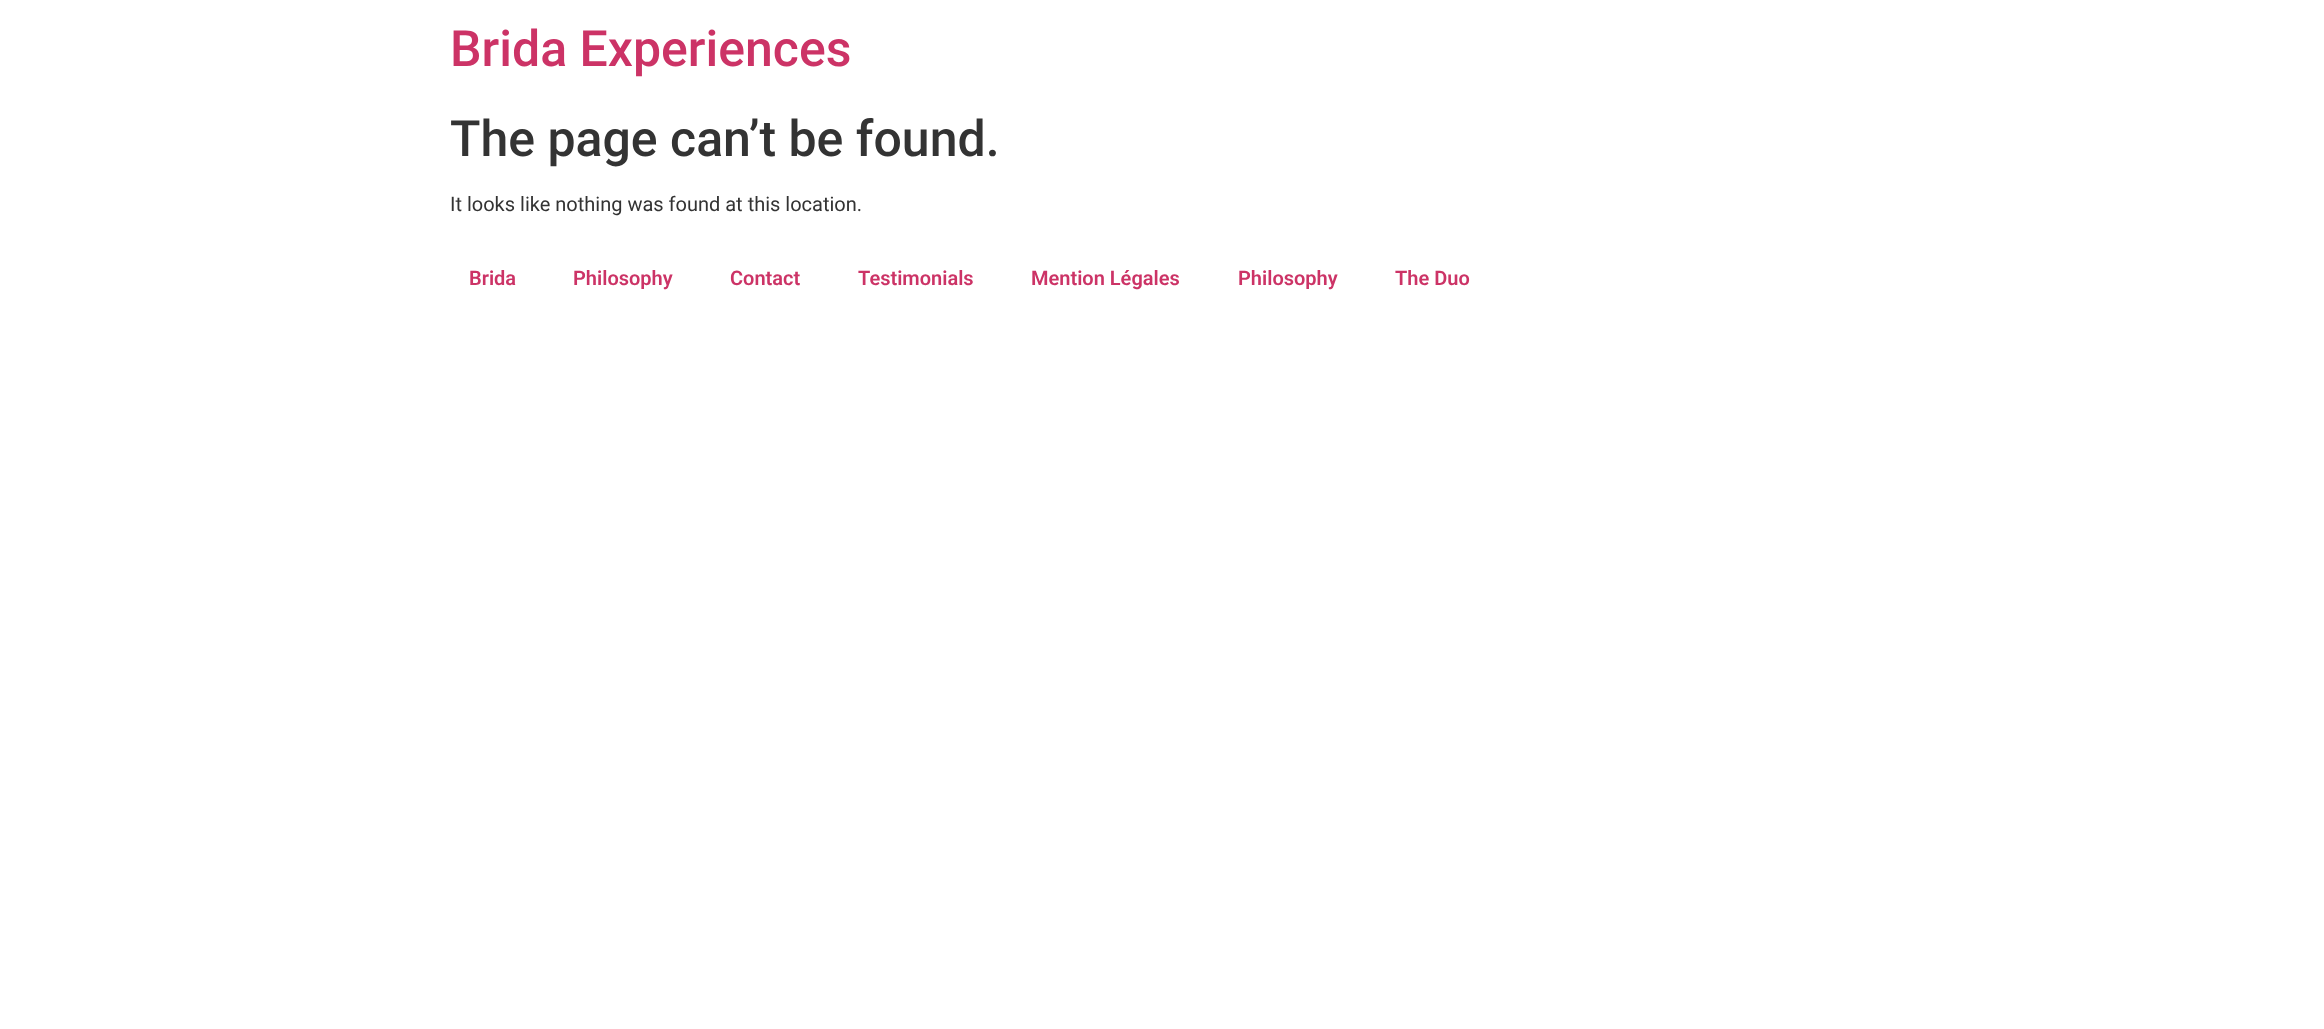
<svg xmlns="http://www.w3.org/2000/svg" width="2324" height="1029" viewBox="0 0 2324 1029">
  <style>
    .t1 { font: 500 50px Roboto; fill: #c36; }
    .t2 { font: 500 50px Roboto; fill: #333; }
    .t3 { font: 20px Roboto; fill: #333; }
    .t4 { font: 600 20px Roboto; fill: #c36; }
  </style>
  <rect width="100%" height="100%" fill="#fff"/>
  <text x="450" y="66" class="t1">Brida Experiences</text>
  <text x="450" y="156" class="t2">The page can’t be found.</text>
  <text x="450" y="211" class="t3">It looks like nothing was found at this location.</text>
  <text x="469" y="285" class="t4">Brida</text>
  <text x="573" y="285" class="t4">Philosophy</text>
  <text x="730" y="285" class="t4">Contact</text>
  <text x="858" y="285" class="t4">Testimonials</text>
  <text x="1031" y="285" class="t4">Mention Légales</text>
  <text x="1238" y="285" class="t4">Philosophy</text>
  <text x="1395" y="285" class="t4">The Duo</text>
</svg>
